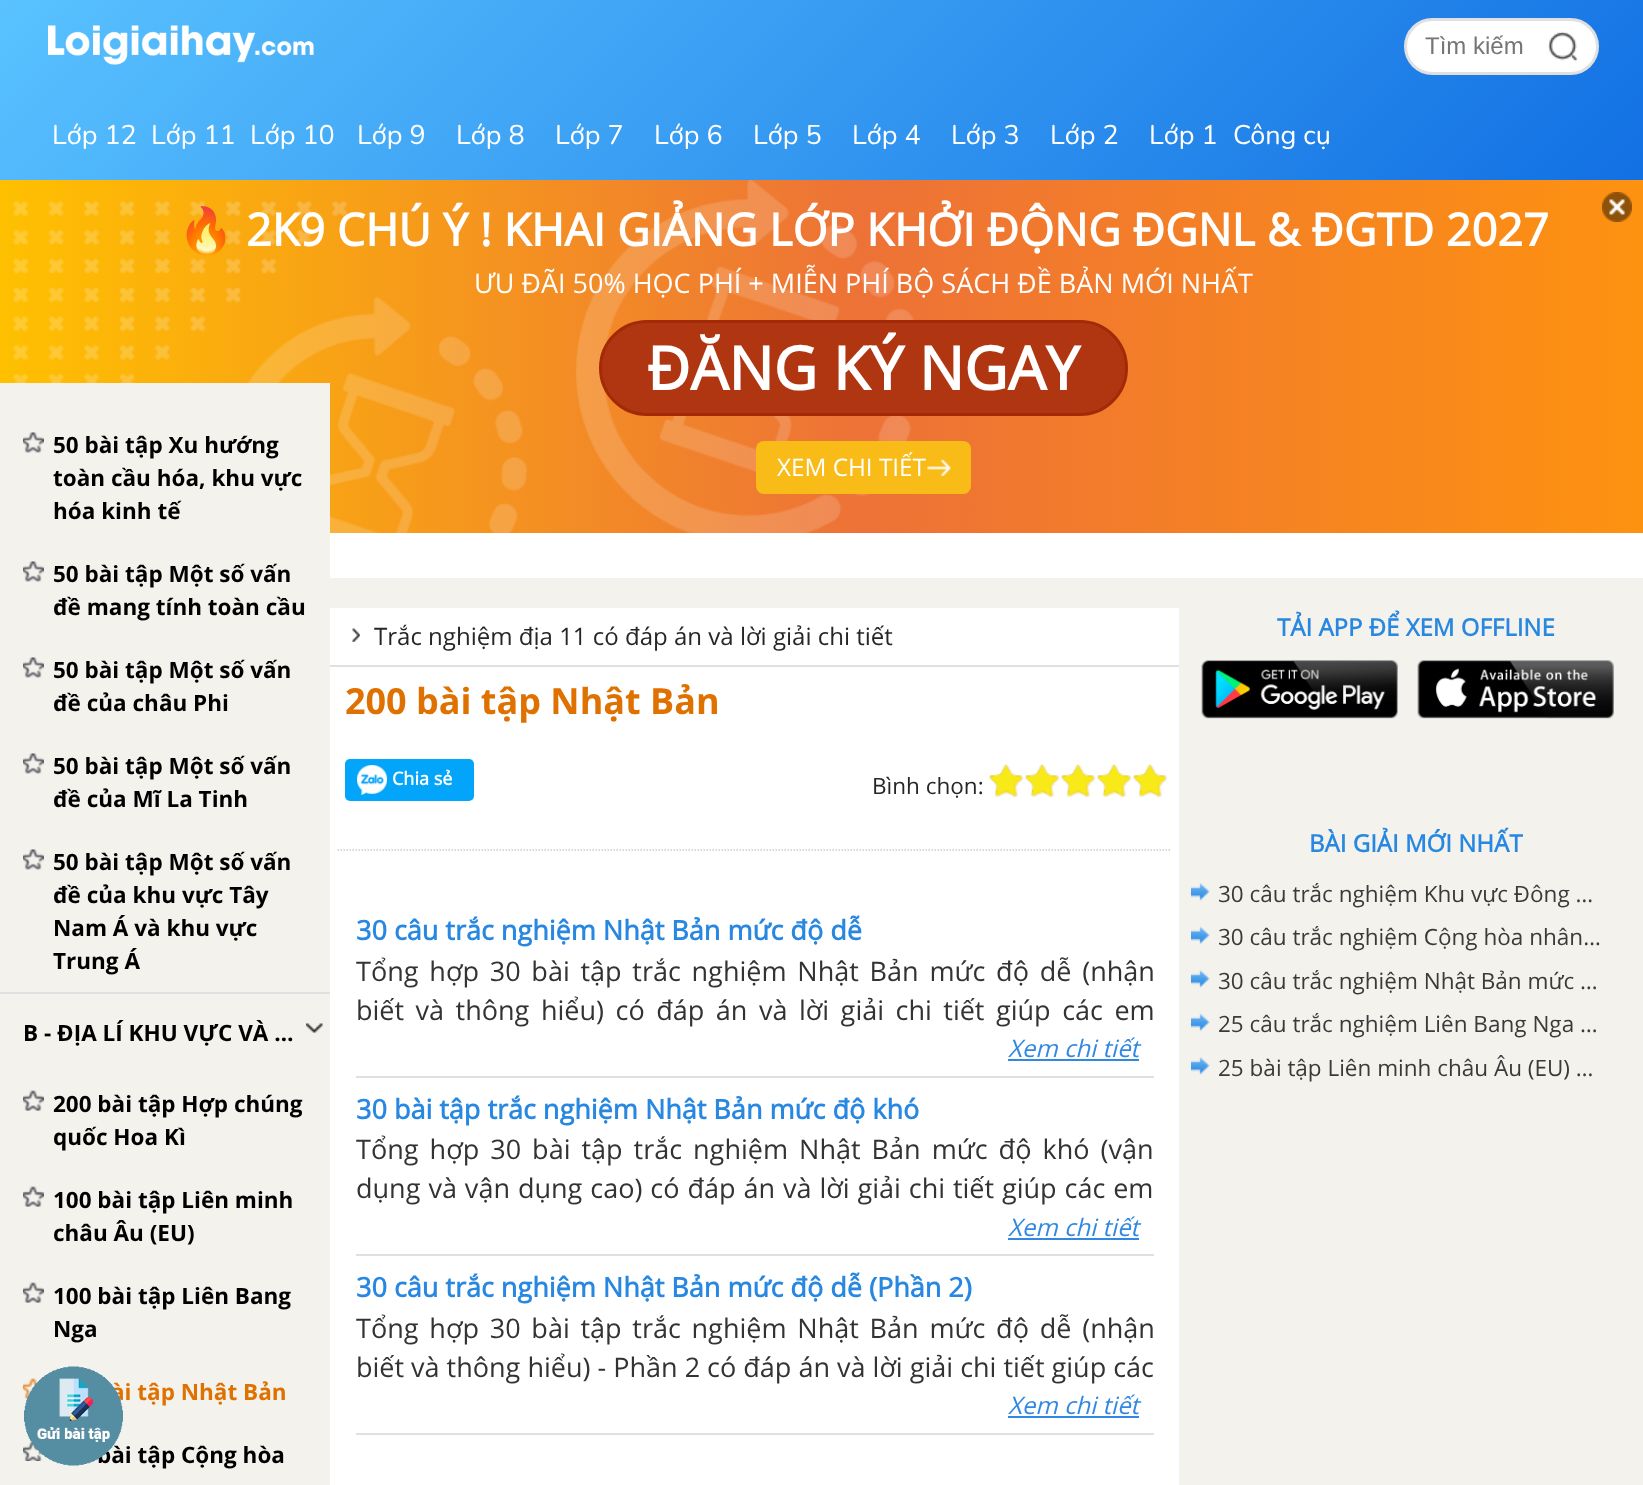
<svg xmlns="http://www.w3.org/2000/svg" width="1643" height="1485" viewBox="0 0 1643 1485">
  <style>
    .t1 { font: 24px Liberation Sans; fill: #757575; }
    .t2 { font: 27px Nunito; fill: #fff; }
    .t3 { font: bold 45px Noto Color Emoji; fill: #fff; }
    .t4 { font: bold 45px 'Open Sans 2'; fill: #fff; }
    .t5 { font: 27px Open Sans; fill: #fff; }
    .t6 { font: bold 60px 'Open Sans 2'; fill: #fff; }
    .t7 { font: 24.25px Open Sans; fill: #fff; }
    .t8 { font: bold 22.5px Open Sans; fill: #000; }
    .t9 { font: bold 22.5px Open Sans; fill: #df7100; }
    .t10 { font: 24px Open Sans; fill: #262626; }
    .t11 { font: bold 36px Open Sans; fill: #df7100; }
    .t12 { font: bold 18px 'Open Sans 2'; fill: #fff; }
    .t13 { font: 22.5px Open Sans; fill: #262626; }
    .t14 { font: bold 27px 'Open Sans 2'; fill: #2888e1; }
    .t15 { font: 27px Open Sans; fill: #333; }
    .t16 { font: italic 24px Open Sans; fill: #3088e3; }
    .t17 { font: bold 24px 'Open Sans 2'; fill: #2888e1; }
    .t18 { font: 22.5px Open Sans; fill: #3a3a3a; }
  </style>
  <defs>
    <linearGradient id="g1" gradientUnits="userSpaceOnUse" x1="1278" y1="546" x2="366" y2="-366"><stop offset="0" stop-color="#1270e3"/><stop offset="1" stop-color="#59c2ff"/></linearGradient>
    <linearGradient id="g2" gradientUnits="userSpaceOnUse" x1="0" y1="356" x2="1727" y2="356"><stop offset="0" stop-color="#ffc000"/><stop offset="0.5" stop-color="#ed7237"/><stop offset="1" stop-color="#ff950c"/></linearGradient>
    <clipPath id="clip1"><rect x="356" y="951" width="798" height="78"/></clipPath>
    <clipPath id="clip2"><rect x="356" y="1130" width="798" height="78"/></clipPath>
    <clipPath id="clip3"><rect x="356" y="1308" width="798" height="78"/></clipPath>
  </defs>
  <rect width="100%" height="100%" fill="#fff"/>
  <rect x="0" y="0" width="1643" height="180" fill="url(#g1)"/>
  <image x="48" y="25" width="266" height="40" href="images/1.png"/>
  <rect x="1405.5" y="19.5" width="192" height="54" rx="27" fill="#fff" stroke="#e0e0e0" stroke-width="3"/>
  <text x="1425" y="54" class="t1">Tìm kiếm</text>
  <image x="1548" y="31" width="30" height="31" href="images/2.png"/>
  <text x="52" y="144" class="t2">Lớp 12</text>
  <text x="151" y="144" class="t2">Lớp 11</text>
  <text x="250" y="144" class="t2">Lớp 10</text>
  <text x="357" y="144" class="t2">Lớp 9</text>
  <text x="456" y="144" class="t2">Lớp 8</text>
  <text x="555" y="144" class="t2">Lớp 7</text>
  <text x="654" y="144" class="t2">Lớp 6</text>
  <text x="753" y="144" class="t2">Lớp 5</text>
  <text x="852" y="144" class="t2">Lớp 4</text>
  <text x="951" y="144" class="t2">Lớp 3</text>
  <text x="1050" y="144" class="t2">Lớp 2</text>
  <text x="1149" y="144" class="t2">Lớp 1</text>
  <text x="1233" y="144" class="t2">Công cụ</text>
  <rect x="0" y="180" width="1643" height="353" fill="url(#g2)"/>
  <image x="13" y="180" width="901" height="353" href="images/3.png"/>
  <text x="178" y="246" class="t3">🔥</text>
  <text x="246" y="246" class="t4">2K9 CHÚ Ý ! KHAI GIẢNG LỚP KHỞI ĐỘNG ĐGNL &amp; ĐGTD 2027</text>
  <text x="474" y="293" class="t5">ƯU ĐÃI 50% HỌC PHÍ + MIỄN PHÍ BỘ SÁCH ĐỀ BẢN MỚI NHẤT</text>
  <rect x="600.5" y="321.5" width="526" height="93" rx="46.5" fill="#b03611" stroke="#a22a06" stroke-width="3"/>
  <text x="647" y="390" class="t6">ĐĂNG KÝ NGAY</text>
  <rect x="756" y="441" width="215" height="53" rx="8" fill="#f8bb18"/>
  <text x="777" y="476" class="t7">XEM CHI TIẾT</text>
  <image x="927" y="459" width="24" height="17" href="images/4.png"/>
  <image x="1602" y="192" width="30" height="30" href="images/5.png"/>
  <rect x="330" y="578" width="1313" height="907" fill="#f4f2ec"/>
  <rect x="0" y="383" width="330" height="1102" fill="#f4f2ec"/>
  <rect x="0" y="992" width="330" height="2" fill="#e0e0e0"/>
  <image x="23" y="432" width="21" height="21" href="images/6.png"/>
  <text x="53" y="453" class="t8">50 bài tập Xu hướng</text>
  <text x="53" y="486" class="t8">toàn cầu hóa, khu vực</text>
  <text x="53" y="519" class="t8">hóa kinh tế</text>
  <image x="23" y="561" width="21" height="21" href="images/6.png"/>
  <text x="53" y="582" class="t8">50 bài tập Một số vấn</text>
  <text x="53" y="615" class="t8">đề mang tính toàn cầu</text>
  <image x="23" y="657" width="21" height="21" href="images/6.png"/>
  <text x="53" y="678" class="t8">50 bài tập Một số vấn</text>
  <text x="53" y="711" class="t8">đề của châu Phi</text>
  <image x="23" y="753" width="21" height="21" href="images/6.png"/>
  <text x="53" y="774" class="t8">50 bài tập Một số vấn</text>
  <text x="53" y="807" class="t8">đề của Mĩ La Tinh</text>
  <image x="23" y="849" width="21" height="21" href="images/6.png"/>
  <text x="53" y="870" class="t8">50 bài tập Một số vấn</text>
  <text x="53" y="903" class="t8">đề của khu vực Tây</text>
  <text x="53" y="936" class="t8">Nam Á và khu vực</text>
  <text x="53" y="969" class="t8">Trung Á</text>
  <text x="23" y="1041" class="t8">B - ĐỊA LÍ KHU VỰC VÀ …</text>
  <image x="306" y="1023" width="17" height="10" href="images/7.png"/>
  <image x="23" y="1090" width="21" height="21" href="images/8.png"/>
  <text x="53" y="1112" class="t8">200 bài tập Hợp chúng</text>
  <text x="53" y="1145" class="t8">quốc Hoa Kì</text>
  <image x="23" y="1186" width="21" height="21" href="images/9.png"/>
  <text x="53" y="1208" class="t8">100 bài tập Liên minh</text>
  <text x="53" y="1241" class="t8">châu Âu (EU)</text>
  <image x="23" y="1282" width="21" height="21" href="images/8.png"/>
  <text x="53" y="1304" class="t8">100 bài tập Liên Bang</text>
  <text x="53" y="1337" class="t8">Nga</text>
  <image x="23" y="1378" width="14" height="21" href="images/10.png"/>
  <text x="111" y="1400" class="t9">ài tập Nhật Bản</text>
  <image x="23" y="1441" width="19" height="20" href="images/11.png"/>
  <text x="97" y="1463" class="t8">bài tập Cộng hòa</text>
  <rect x="330" y="608" width="849" height="877" fill="#fff"/>
  <rect x="330" y="665" width="849" height="2" fill="#e0e0e0"/>
  <image x="352" y="628" width="8" height="14" href="images/12.png"/>
  <text x="374" y="645" class="t10">Trắc nghiệm địa 11 có đáp án và lời giải chi tiết</text>
  <text x="345" y="714" class="t11">200 bài tập Nhật Bản</text>
  <path d="M337.5 850H1171.5" fill="none" stroke="#ccc" stroke-width="1.5" stroke-dasharray="1.5 1.5"/>
  <rect x="345" y="759" width="129" height="42" rx="5" fill="#03a5fa"/>
  <image x="357" y="765" width="30" height="30" href="images/13.png"/>
  <text x="392" y="785" class="t12">Chia sẻ</text>
  <text x="872" y="794" class="t13">Bình chọn:</text>
  <image x="989" y="764" width="179" height="33" href="images/14.png"/>
  <image x="989" y="764" width="177" height="33" href="images/15.png"/>
  <rect x="356" y="1076" width="798" height="2" fill="#e0e0e0"/>
  <text x="356" y="940" class="t14">30 câu trắc nghiệm Nhật Bản mức độ dễ</text>
  <g clip-path="url(#clip1)">
    <text x="356" y="981" word-spacing="3.75" class="t15">Tổng hợp 30 bài tập trắc nghiệm Nhật Bản mức độ dễ (nhận</text>
  </g>
  <text x="356" y="1020" word-spacing="4.5" class="t15">biết và thông hiểu) có đáp án và lời giải chi tiết giúp các em</text>
  <text x="1008" y="1057" class="t16">Xem chi tiết</text>
  <rect x="1008" y="1059" width="131" height="2" fill="#3088e3"/>
  <rect x="356" y="1254" width="798" height="2" fill="#e0e0e0"/>
  <text x="356" y="1119" class="t14">30 bài tập trắc nghiệm Nhật Bản mức độ khó</text>
  <g clip-path="url(#clip2)">
    <text x="356" y="1159" word-spacing="4" class="t15">Tổng hợp 30 bài tập trắc nghiệm Nhật Bản mức độ khó (vận</text>
  </g>
  <text x="356" y="1198" word-spacing="0.9" class="t15">dụng và vận dụng cao) có đáp án và lời giải chi tiết giúp các em</text>
  <text x="1008" y="1236" class="t16">Xem chi tiết</text>
  <rect x="1008" y="1238" width="131" height="2" fill="#3088e3"/>
  <rect x="356" y="1433" width="798" height="2" fill="#e0e0e0"/>
  <text x="356" y="1297" class="t14">30 câu trắc nghiệm Nhật Bản mức độ dễ (Phần 2)</text>
  <g clip-path="url(#clip3)">
    <text x="356" y="1338" word-spacing="3.75" class="t15">Tổng hợp 30 bài tập trắc nghiệm Nhật Bản mức độ dễ (nhận</text>
  </g>
  <text x="356" y="1377" class="t15">biết và thông hiểu) - Phần 2 có đáp án và lời giải chi tiết giúp các</text>
  <text x="1008" y="1414" class="t16">Xem chi tiết</text>
  <rect x="1008" y="1416" width="131" height="2" fill="#3088e3"/>
  <text x="1277" y="636" class="t17">TẢI APP ĐỂ XEM OFFLINE</text>
  <image x="1201" y="660" width="197" height="59" href="images/16.png"/>
  <image x="1417" y="660" width="197" height="59" href="images/17.png"/>
  <text x="1309" y="852" class="t17">BÀI GIẢI MỚI NHẤT</text>
  <image x="1191" y="883" width="19" height="18" href="images/18.png"/>
  <text x="1218" y="902" class="t18">30 câu trắc nghiệm Khu vực Đông …</text>
  <image x="1191" y="926" width="19" height="18" href="images/19.png"/>
  <text x="1218" y="945" class="t18">30 câu trắc nghiệm Cộng hòa nhân…</text>
  <image x="1191" y="970" width="19" height="18" href="images/18.png"/>
  <text x="1218" y="989" class="t18">30 câu trắc nghiệm Nhật Bản mức …</text>
  <image x="1191" y="1013" width="19" height="18" href="images/19.png"/>
  <text x="1218" y="1032" class="t18">25 câu trắc nghiệm Liên Bang Nga …</text>
  <image x="1191" y="1057" width="19" height="18" href="images/18.png"/>
  <text x="1218" y="1076" class="t18">25 bài tập Liên minh châu Âu (EU) …</text>
  <image x="24" y="1366" width="99" height="100" href="images/20.png"/>
</svg>
